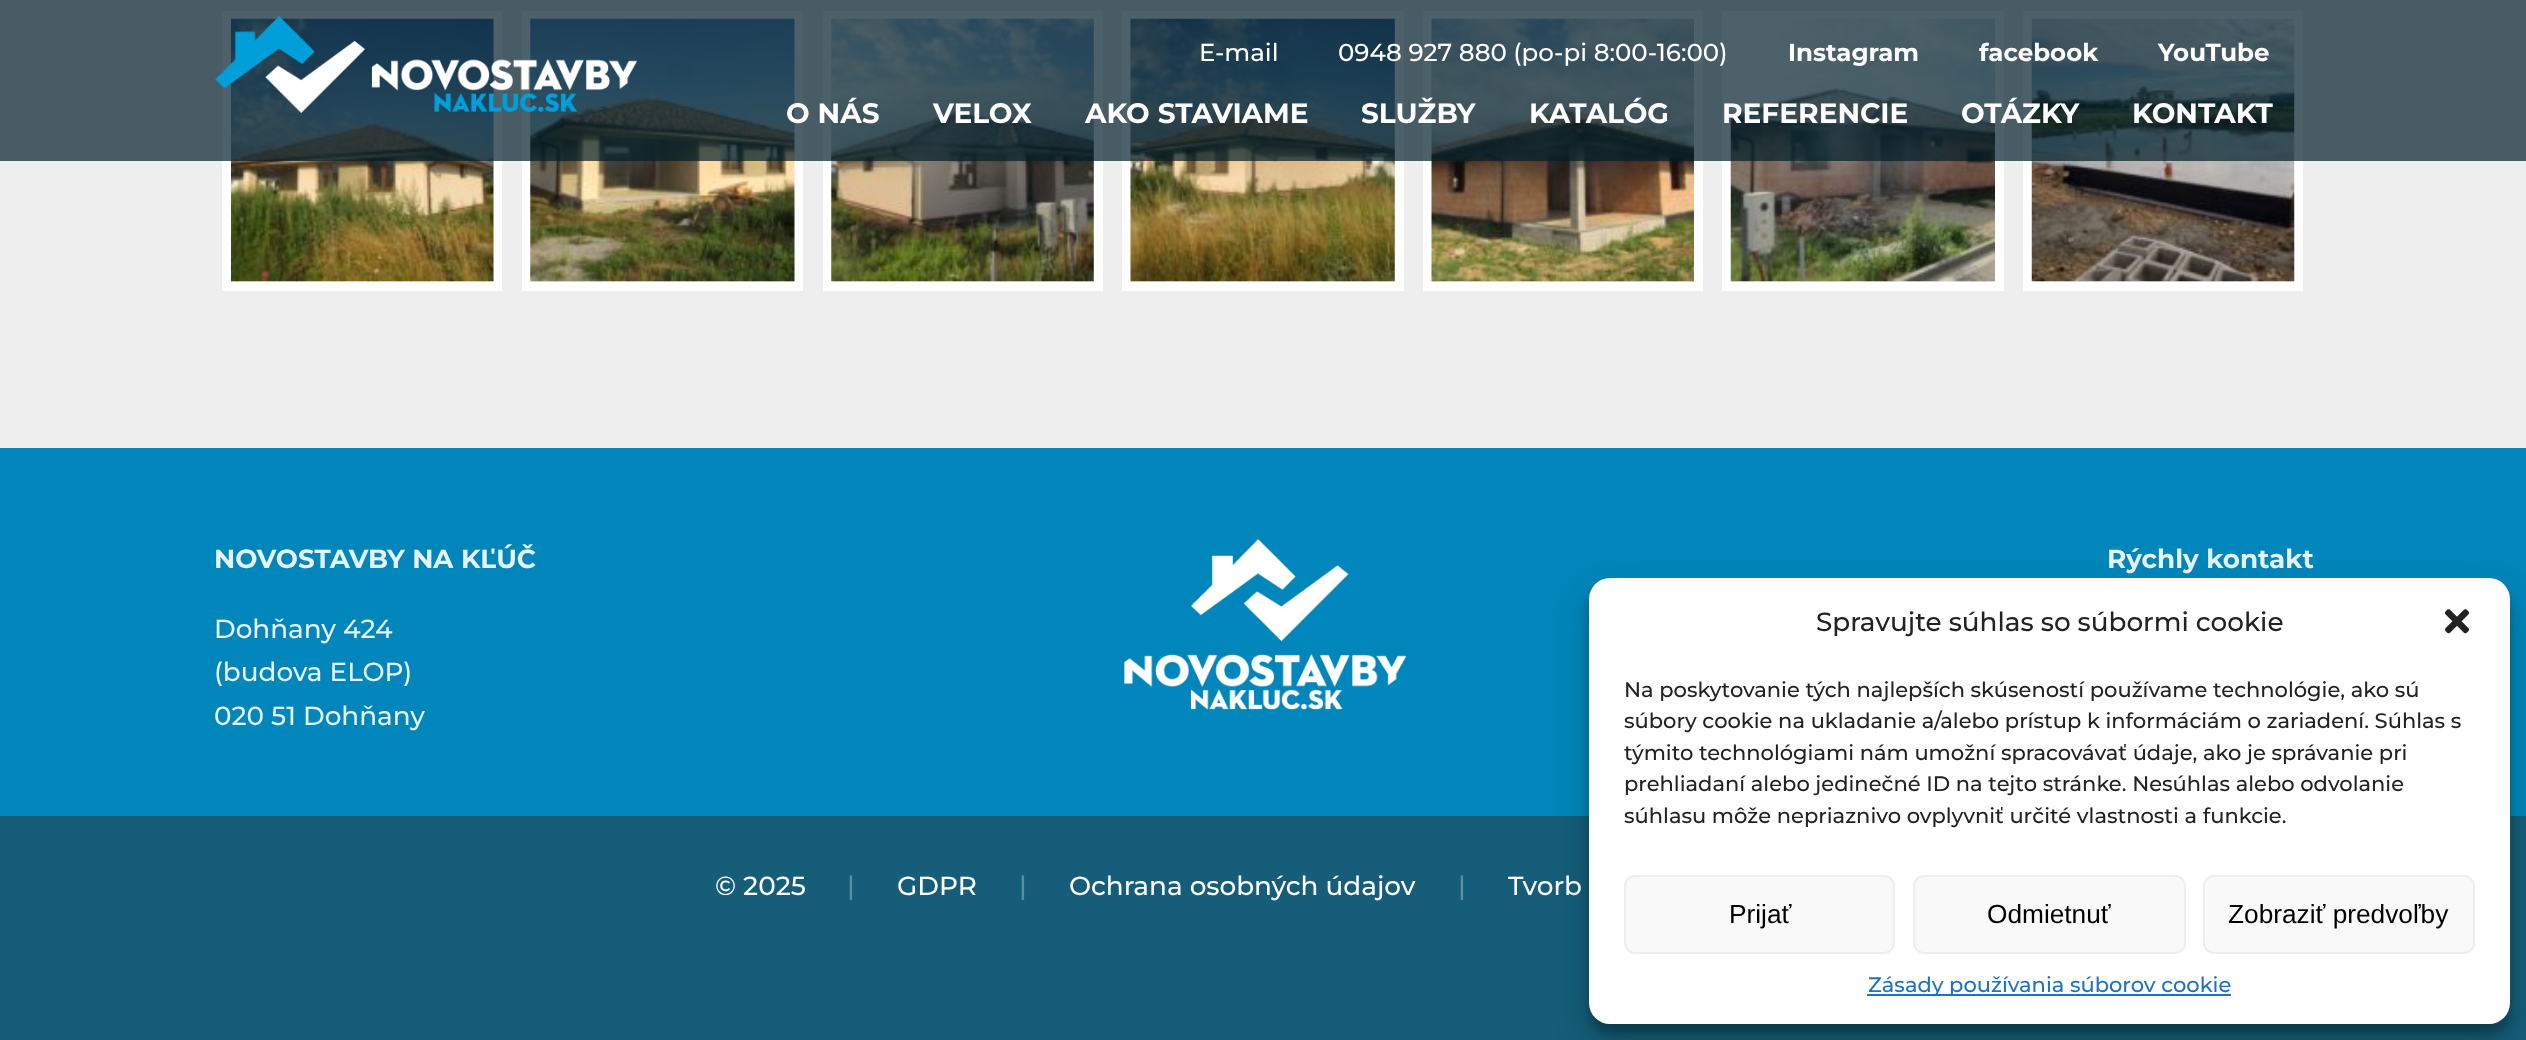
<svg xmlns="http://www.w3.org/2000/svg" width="2526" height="1040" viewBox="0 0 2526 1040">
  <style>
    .t1 { font: 500 24.5px Montserrat; fill: #fff; }
    .t2 { font: bold 24.5px Montserrat; fill: #fff; }
    .t3 { font: bold 28px Montserrat; fill: #fff; }
    .t4 { font: bold 26.25px Montserrat; fill: #e6f3f8; }
    .t5 { font: 500 26.25px Montserrat; fill: #e6f3f8; }
    .t6 { font: 500 26.25px Montserrat; fill: #fff; }
    .t7 { font: 500 26.25px Montserrat; fill: #5b8ea1; }
    .t8 { font: 500 26.25px Montserrat; fill: #222; }
    .t9 { font: 500 21px Montserrat; fill: #222; }
    .t10 { font: 26.25px Liberation Sans; fill: #000; }
    .t11 { font: 500 21px Montserrat; fill: #1e73be; }
  </style>
  <rect width="100%" height="100%" fill="#eee"/>
  <rect x="226.5" y="15.5" width="271" height="271" fill="none" stroke="#fff" stroke-width="9"/>
  <image x="231" y="18" width="263" height="264" href="images/1.png"/>
  <rect x="526.5" y="15.5" width="272" height="271" fill="none" stroke="#fff" stroke-width="9"/>
  <image x="530" y="18" width="265" height="264" href="images/2.png"/>
  <rect x="827.5" y="15.5" width="271" height="271" fill="none" stroke="#fff" stroke-width="9"/>
  <image x="831" y="18" width="263" height="264" href="images/3.png"/>
  <rect x="1126.5" y="15.5" width="273" height="271" fill="none" stroke="#fff" stroke-width="9"/>
  <image x="1130" y="18" width="265" height="264" href="images/4.png"/>
  <rect x="1427.5" y="15.5" width="271" height="271" fill="none" stroke="#fff" stroke-width="9"/>
  <image x="1431" y="18" width="263" height="264" href="images/5.png"/>
  <rect x="1726.5" y="15.5" width="273" height="271" fill="none" stroke="#fff" stroke-width="9"/>
  <image x="1730" y="18" width="265" height="264" href="images/6.png"/>
  <rect x="2027.5" y="15.5" width="271" height="271" fill="none" stroke="#fff" stroke-width="9"/>
  <image x="2031" y="18" width="264" height="264" href="images/7.png"/>
  <rect x="0" y="0" width="2526" height="161" fill="#001e2ab3"/>
  <image x="215" y="15" width="422" height="98" href="images/8.png"/>
  <text x="1199" y="61" class="t1">E-mail</text>
  <text x="1338" y="61" class="t1">0948 927 880 (po-pi 8:00-16:00)</text>
  <text x="1788" y="61" class="t2">Instagram</text>
  <text x="1979" y="61" class="t2">facebook</text>
  <text x="2158" y="61" class="t2">YouTube</text>
  <text x="786" y="123" class="t3">O NÁS</text>
  <text x="933" y="123" class="t3">VELOX</text>
  <text x="1085" y="123" class="t3">AKO STAVIAME</text>
  <text x="1361" y="123" class="t3">SLUŽBY</text>
  <text x="1529" y="123" class="t3">KATALÓG</text>
  <text x="1722" y="123" class="t3">REFERENCIE</text>
  <text x="1961" y="123" class="t3">OTÁZKY</text>
  <text x="2132" y="123" class="t3">KONTAKT</text>
  <rect x="0" y="448" width="2526" height="368" fill="#0086ba"/>
  <text x="214" y="568" class="t4">NOVOSTAVBY NA KĽÚČ</text>
  <text x="214" y="638" class="t5">Dohňany 424</text>
  <text x="214" y="681" class="t5">(budova ELOP)</text>
  <text x="214" y="725" class="t5">020 51 Dohňany</text>
  <image x="1124" y="539" width="283" height="171" href="images/9.png"/>
  <text x="2107" y="568" class="t4">Rýchly kontakt</text>
  <rect x="0" y="816" width="2526" height="224" fill="#155d78"/>
  <text x="715" y="895" class="t6">© 2025</text>
  <text x="847" y="895" class="t7">|</text>
  <text x="897" y="895" class="t6">GDPR</text>
  <text x="1019" y="895" class="t7">|</text>
  <text x="1069" y="895" class="t6">Ochrana osobných údajov</text>
  <text x="1458" y="895" class="t7">|</text>
  <text x="1508" y="895" class="t6">Tvorb</text>
  <rect x="1589" y="588" width="921" height="446" rx="21" fill="#0000003b" filter="blur(5px)"/>
  <rect x="1589" y="595" width="921" height="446" rx="21" fill="#00000030" filter="blur(17.5px)"/>
  <rect x="1589" y="578" width="921" height="446" rx="21" fill="#fff"/>
  <text x="1816" y="631" class="t8">Spravujte súhlas so súbormi cookie</text>
  <image x="2445" y="609" width="24" height="25" href="images/10.png"/>
  <text x="1624" y="697" class="t9">Na poskytovanie tých najlepších skúseností používame technológie, ako sú</text>
  <text x="1624" y="728" class="t9">súbory cookie na ukladanie a/alebo prístup k informáciám o zariadení. Súhlas s</text>
  <text x="1624" y="760" class="t9">týmito technológiami nám umožní spracovávať údaje, ako je správanie pri</text>
  <text x="1624" y="791" class="t9">prehliadaní alebo jedinečné ID na tejto stránke. Nesúhlas alebo odvolanie</text>
  <text x="1624" y="823" class="t9">súhlasu môže nepriaznivo ovplyvniť určité vlastnosti a funkcie.</text>
  <rect x="1625" y="876" width="269" height="77" rx="10" fill="#f9f9f9" stroke="#eee" stroke-width="2"/>
  <text x="1729" y="923" class="t10">Prijať</text>
  <rect x="1914" y="876" width="271" height="77" rx="10" fill="#f9f9f9" stroke="#eee" stroke-width="2"/>
  <text x="1987" y="923" class="t10">Odmietnuť</text>
  <rect x="2204" y="876" width="270" height="77" rx="10" fill="#f9f9f9" stroke="#eee" stroke-width="2"/>
  <text x="2228" y="923" class="t10">Zobraziť predvoľby</text>
  <rect x="1867" y="994" width="364" height="2" fill="#1e73be"/>
  <text x="1868" y="992" class="t11">Zásady používania súborov cookie</text>
</svg>
